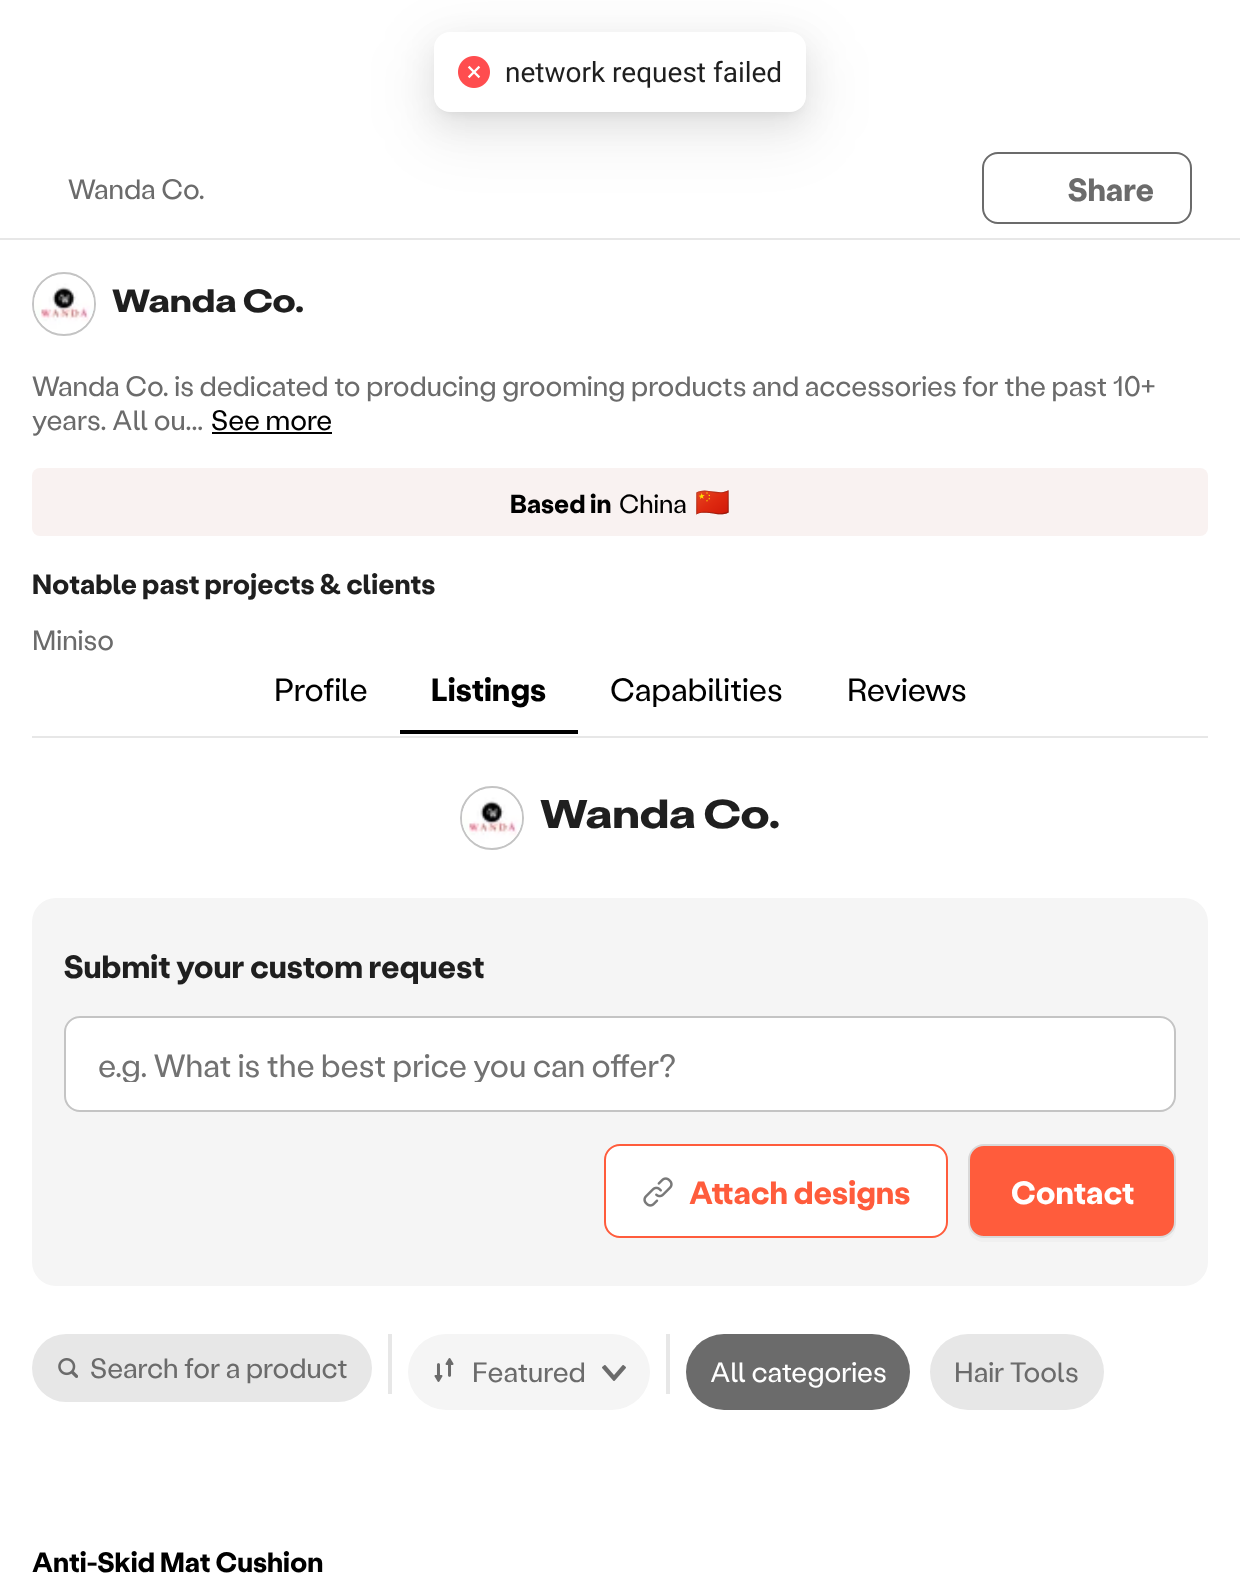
<svg xmlns="http://www.w3.org/2000/svg" width="1240" height="1582" viewBox="0 0 1240 1582">
  <style>
    .t1 { font: 28px Roboto; fill: #1f1f1f; }
    .t2 { font: 28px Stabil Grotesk; fill: #6b6b6b; }
    .t3 { font: bold 32px Stabil Grotesk; fill: #6b6b6b; }
    .t4 { font: bold 32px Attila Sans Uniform; fill: #1f1f1f; }
    .t5 { font: 28px Stabil Grotesk; fill: #000; }
    .t6 { font: bold 26px Stabil Grotesk; fill: #000; }
    .t7 { font: 26px Stabil Grotesk; fill: #000; }
    .t8 { font: 28px Noto Color Emoji; fill: #1f1f1f; }
    .t9 { font: bold 28px Stabil Grotesk; fill: #1f1f1f; }
    .t10 { font: 32px Stabil Grotesk; fill: #000; }
    .t11 { font: bold 32px Stabil Grotesk; fill: #000; }
    .t12 { font: bold 40px Attila Sans Uniform; fill: #1f1f1f; }
    .t13 { font: bold 32px Stabil Grotesk; fill: #1f1f1f; }
    .t14 { font: 32px Stabil Grotesk; fill: #727272; }
    .t15 { font: bold 32px Stabil Grotesk; fill: #ff5c3c; }
    .t16 { font: bold 32px Stabil Grotesk; fill: #fff; }
    .t17 { font: 28px Stabil Grotesk; fill: #fff; }
    .t18 { font: bold 28px Stabil Grotesk; fill: #000; }
  </style>
  <defs>
    <clipPath id="clip1"><rect x="98" y="1044" width="1044" height="38"/></clipPath>
  </defs>
  <rect width="100%" height="100%" fill="#fff"/>
  <rect x="418" y="34" width="404" height="112" rx="32" fill="#0000000d" filter="blur(28px)"/>
  <rect x="442" y="46" width="356" height="64" rx="8" fill="#0000001f" filter="blur(6px)"/>
  <rect x="434" y="44" width="372" height="80" rx="16" fill="#00000014" filter="blur(16px)"/>
  <rect x="434" y="32" width="372" height="80" rx="16" fill="#fff"/>
  <image x="458" y="56" width="32" height="32" href="images/1.png"/>
  <text x="505" y="82" class="t1">network request failed</text>
  <rect x="0" y="238" width="1240" height="2" fill="#e7e7e7"/>
  <text x="68" y="199" class="t2">Wanda Co.</text>
  <rect x="983" y="153" width="208" height="70" rx="15" fill="none" stroke="#6b6b6b" stroke-width="2"/>
  <text x="1068" y="201" class="t3">Share</text>
  <circle cx="64" cy="304" r="31" fill="none" stroke="#c4c4c4" stroke-width="2"/>
  <image x="34" y="276" width="60" height="56" href="images/2.png"/>
  <text x="112" y="312" class="t4">Wanda Co.</text>
  <text x="32" y="396" class="t2">Wanda Co. is dedicated to producing grooming products and accessories for the past 10+</text>
  <text x="32" y="430" class="t2">years. All ou...</text>
  <text x="211" y="430" class="t5">See more</text>
  <rect x="212" y="432" width="120" height="2" fill="#000"/>
  <rect x="32" y="468" width="1176" height="68" rx="8" fill="#f9f2f1"/>
  <text x="510" y="513" class="t6">Based in</text>
  <text x="619" y="513" class="t7">China</text>
  <text x="695" y="512" class="t8">🇨🇳</text>
  <text x="32" y="594" class="t9">Notable past projects &amp; clients</text>
  <text x="32" y="650" class="t2">Miniso</text>
  <rect x="32" y="736" width="1176" height="2" fill="#e7e7e7"/>
  <text x="274" y="701" class="t10">Profile</text>
  <rect x="400" y="730" width="178" height="4" fill="#000"/>
  <text x="431" y="701" class="t11">Listings</text>
  <text x="610" y="701" class="t10">Capabilities</text>
  <text x="847" y="701" class="t10">Reviews</text>
  <circle cx="492" cy="818" r="31" fill="none" stroke="#c4c4c4" stroke-width="2"/>
  <image x="462" y="790" width="60" height="56" href="images/3.png"/>
  <text x="540" y="828" class="t12">Wanda Co.</text>
  <rect x="32" y="898" width="1176" height="388" rx="24" fill="#f5f5f5"/>
  <text x="64" y="978" class="t13">Submit your custom request</text>
  <rect x="65" y="1017" width="1110" height="94" rx="15" fill="#fff" stroke="#c4c4c4" stroke-width="2"/>
  <g clip-path="url(#clip1)">
    <text x="98" y="1077" class="t14">e.g. What is the best price you can offer?</text>
  </g>
  <rect x="605" y="1145" width="342" height="92" rx="15" fill="#fff" stroke="#ff5c3c" stroke-width="2"/>
  <image x="643" y="1177" width="30" height="30" href="images/4.png"/>
  <text x="689" y="1204" class="t15">Attach designs</text>
  <path d="M968 1222V1226C968 1235 975 1242 984 1242H1160C1169 1242 1176 1235 1176 1226V1222C1176 1231 1169 1238 1160 1238H984C975 1238 968 1231 968 1222Z" fill="#f0f0f0"/>
  <rect x="969" y="1145" width="206" height="92" rx="15" fill="#ff5c3c" stroke="#d9d9d9" stroke-width="2"/>
  <text x="1011" y="1204" class="t16">Contact</text>
  <rect x="32" y="1334" width="340" height="68" rx="34" fill="#e7e7e7"/>
  <image x="58" y="1358" width="20" height="20" href="images/5.png"/>
  <text x="90" y="1378" class="t2">Search for a product</text>
  <rect x="388" y="1334" width="4" height="60" fill="#e7e7e7"/>
  <rect x="408" y="1334" width="242" height="76" rx="38" fill="#f5f5f5"/>
  <image x="434" y="1358" width="20" height="24" href="images/6.png"/>
  <text x="472" y="1382" class="t2">Featured</text>
  <image x="602" y="1365" width="24" height="16" href="images/7.png"/>
  <rect x="666" y="1334" width="4" height="60" fill="#e7e7e7"/>
  <rect x="686" y="1334" width="224" height="76" rx="38" fill="#6b6b6b"/>
  <text x="710" y="1382" class="t17">All categories</text>
  <rect x="930" y="1334" width="174" height="76" rx="38" fill="#e7e7e7"/>
  <text x="954" y="1382" class="t2">Hair Tools</text>
  <text x="32" y="1572" class="t18">Anti-Skid Mat Cushion</text>
</svg>
